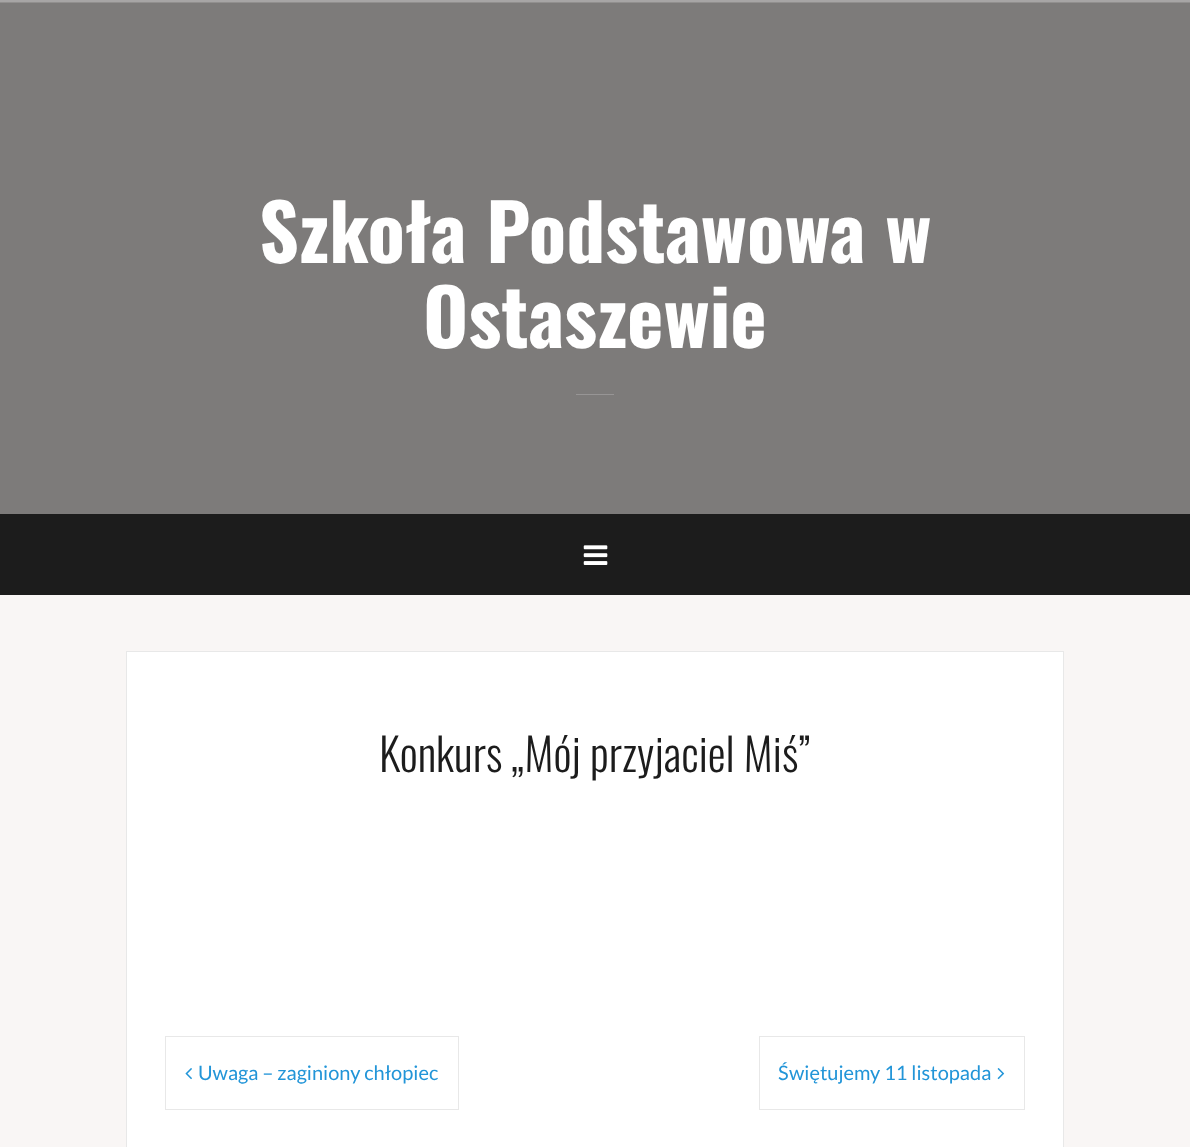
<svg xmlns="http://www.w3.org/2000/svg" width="1190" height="1147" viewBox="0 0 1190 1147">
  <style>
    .t1 { font: bold 77.5px Oswald; fill: #fff; }
    .t2 { font: 300 45px Oswald; fill: #1c1c1c; }
    .t3 { font: 20px Lato; fill: #2295d8; }
  </style>
  <rect width="100%" height="100%" fill="#f9f6f5"/>
  <rect x="0" y="2" width="1190" height="1" fill="#918f8e"/>
  <rect x="0" y="0" width="1190" height="2" fill="#a7a5a5"/>
  <rect x="0" y="3" width="1190" height="511" fill="#7d7b7a"/>
  <text x="259" y="263" class="t1">Szkoła Podstawowa w</text>
  <text x="423" y="348" class="t1">Ostaszewie</text>
  <rect x="576" y="394" width="38" height="1" fill="#979595"/>
  <rect x="0" y="514" width="1190" height="81" fill="#1c1c1c"/>
  <image x="583" y="545" width="25" height="20" href="images/1.png"/>
  <rect x="126.5" y="651.5" width="937" height="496" fill="#fff" stroke="#e8e8e8"/>
  <text x="379" y="772" class="t2">Konkurs „Mój przyjaciel Miś”</text>
  <rect x="165.5" y="1036.5" width="293" height="73" fill="none" stroke="#e8e8e8"/>
  <image x="185" y="1068" width="7" height="12" href="images/2.png"/>
  <text x="198" y="1080" class="t3">Uwaga – zaginiony chłopiec</text>
  <rect x="759.5" y="1036.5" width="265" height="73" fill="none" stroke="#e8e8e8"/>
  <text x="778" y="1080" class="t3">Świętujemy 11 listopada</text>
  <image x="997" y="1068" width="8" height="12" href="images/3.png"/>
</svg>
